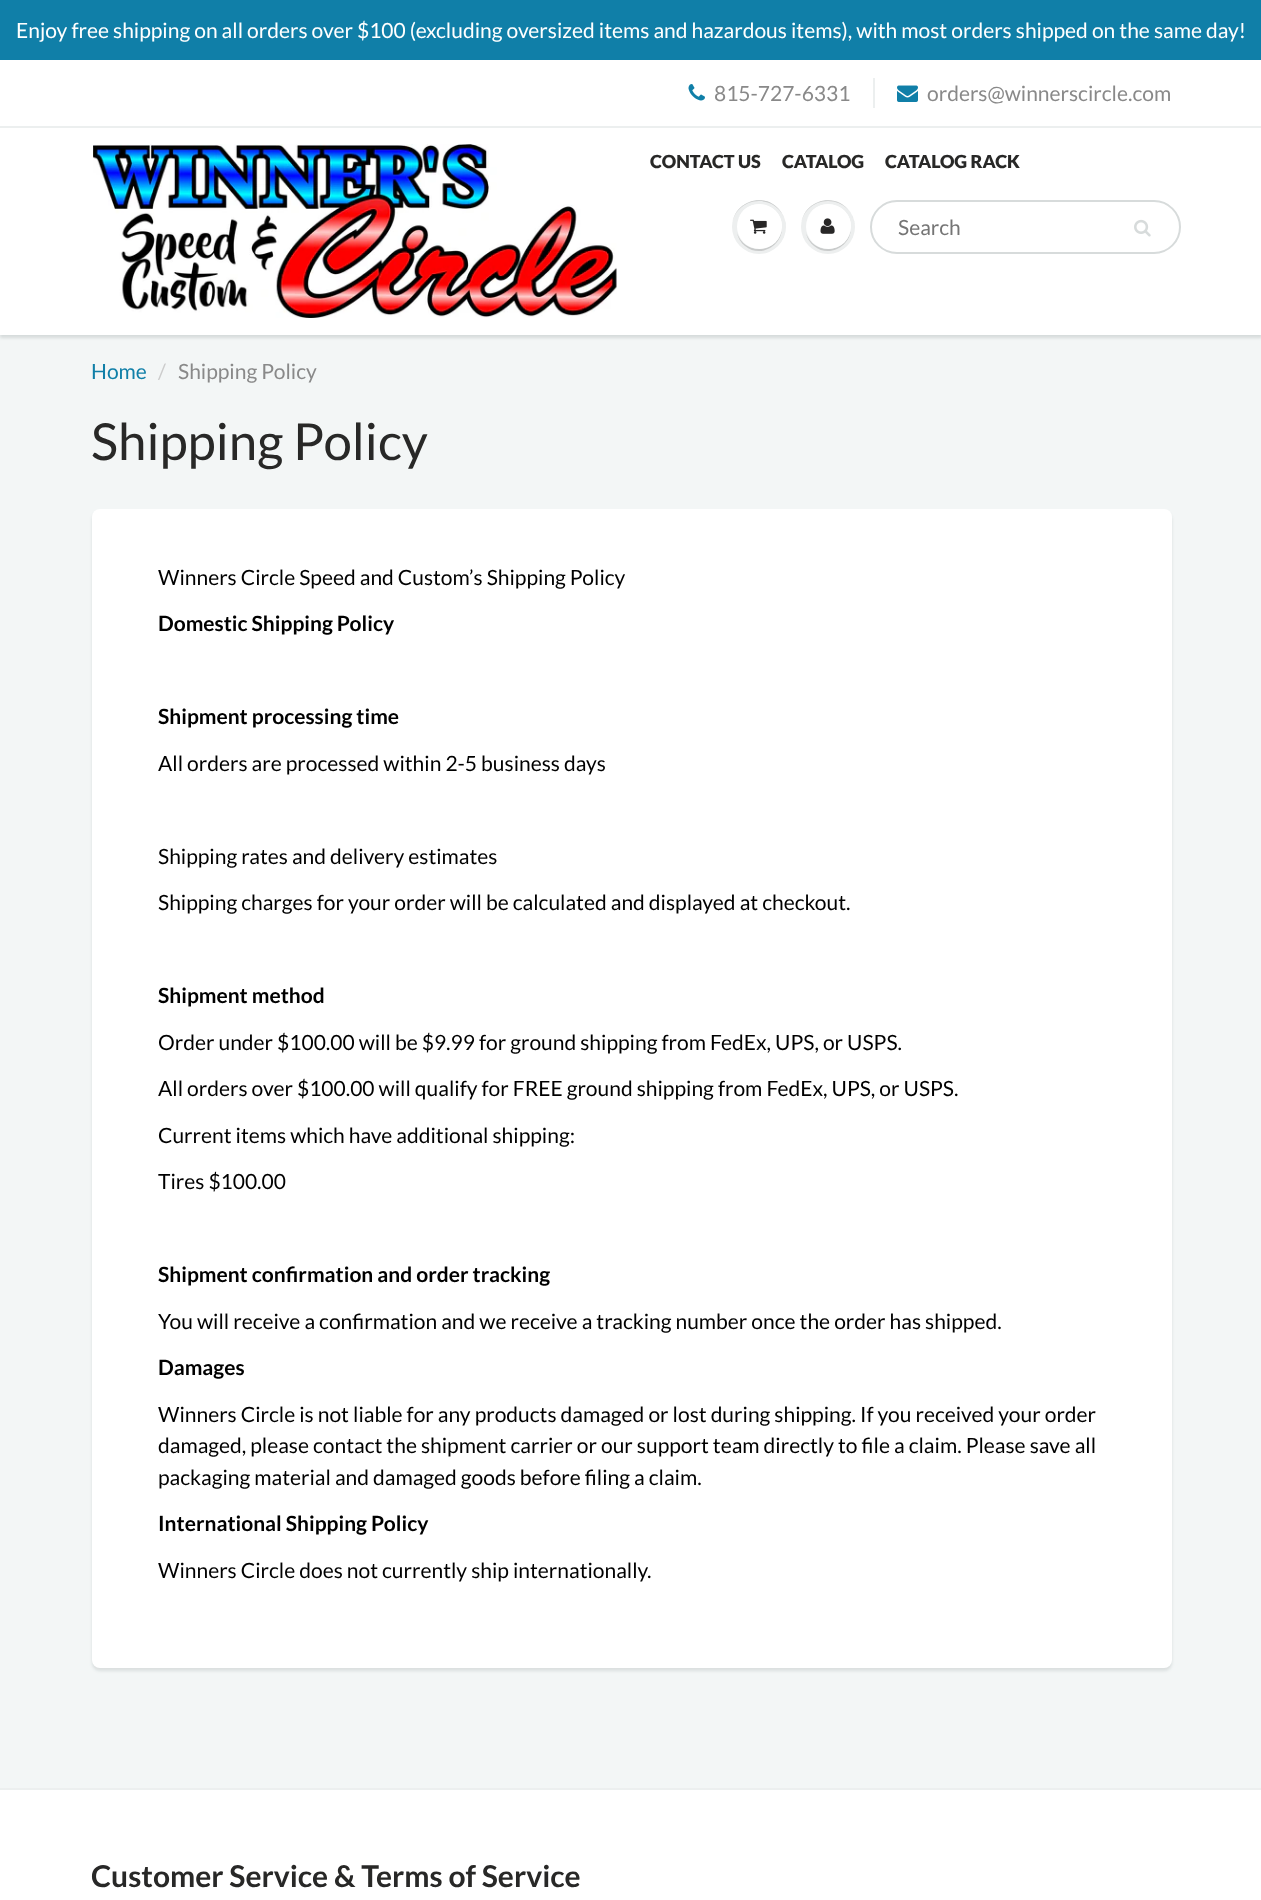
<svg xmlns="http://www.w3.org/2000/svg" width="1261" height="1900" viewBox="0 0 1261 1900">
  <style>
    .t1 { font: 21px Lato; fill: #fff; }
    .t2 { font: 21px Lato; fill: #898989; }
    .t3 { font: 900 18px Lato; fill: #282827; }
    .t4 { font: 21px Lato; fill: #757575; }
    .t5 { font: 21px Lato; fill: #107fa8; }
    .t6 { font: 21px Lato; fill: #ccc; }
    .t7 { font: 51px Lato; fill: #282827; }
    .t8 { font: 21px Lato; fill: #000; }
    .t9 { font: bold 21px Lato; fill: #000; }
    .t10 { font: bold 30px Lato; fill: #282827; }
  </style>
  <rect width="100%" height="100%" fill="#fff"/>
  <rect x="0" y="0" width="1261" height="60" fill="#107fa8"/>
  <text x="16" y="38" class="t1">Enjoy free shipping on all orders over $100 (excluding oversized items and hazardous items), with most orders shipped on the same day!</text>
  <image x="688" y="84" width="17" height="17" href="images/1.png"/>
  <text x="714" y="101" class="t2">815-727-6331</text>
  <rect x="873" y="78" width="2" height="30" fill="#ecefef"/>
  <image x="897" y="85" width="21" height="17" href="images/2.png"/>
  <text x="927" y="101" class="t2">orders@winnerscircle.com</text>
  <rect x="0" y="335" width="1261" height="1453" fill="#f3f6f6"/>
  <rect x="0" y="129" width="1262" height="209" fill="#0b191c1f" filter="blur(1.5px)"/>
  <rect x="0" y="128" width="1261" height="207" fill="#fff"/>
  <rect x="0" y="126" width="1261" height="2" fill="#ecefef"/>
  <image x="93" y="144" width="524" height="174" href="images/3.png"/>
  <text x="650" y="168" class="t3">CONTACT US</text>
  <text x="782" y="168" class="t3">CATALOG</text>
  <text x="885" y="168" class="t3">CATALOG RACK</text>
  <circle cx="759" cy="227" r="27" fill="#edefef"/>
  <path d="M759 201C774 201 786 213 786 227C786 222 784 216 781 212C766 190 732 201 732 227C732 213 744 201 759 201Z" fill="#c9cbcb"/>
  <path d="M737 233C738 238 741 243 745 246C762 260 787 243 781 222C787 250 746 260 737 233Z" fill="#c9cbcb"/>
  <circle cx="759.5" cy="226.5" r="22.5" fill="#fff"/>
  <path d="M759 206C776 206 783 221 781 233C789 205 748 192 738 219C741 212 748 206 759 206Z" fill="#fff"/>
  <image x="750" y="219" width="17" height="15" href="images/4.png"/>
  <circle cx="828" cy="227" r="27" fill="#edefef"/>
  <path d="M828 201C843 201 855 213 855 227C855 222 853 216 850 212C835 190 801 201 801 227C801 213 813 201 828 201Z" fill="#c9cbcb"/>
  <path d="M806 233C807 238 810 243 814 246C831 260 856 243 850 222C856 250 815 260 806 233Z" fill="#c9cbcb"/>
  <circle cx="828.5" cy="226.5" r="22.5" fill="#fff"/>
  <path d="M828 206C845 206 852 221 850 233C858 205 817 192 807 219C810 212 817 206 828 206Z" fill="#fff"/>
  <image x="820" y="218" width="15" height="16" href="images/5.png"/>
  <rect x="871" y="201" width="309" height="52" rx="26" fill="none" stroke="#d7dbdb" stroke-width="2"/>
  <text x="898" y="235" class="t4">Search</text>
  <image x="1134" y="219" width="17" height="18" href="images/6.png"/>
  <text x="91" y="379" class="t5">Home</text>
  <text x="158" y="379" class="t6">/</text>
  <text x="178" y="379" class="t2">Shipping Policy</text>
  <text x="91" y="460" class="t7">Shipping Policy</text>
  <rect x="92" y="512" width="1080" height="1159" rx="8" fill="#0b191c1a" filter="blur(1.5px)"/>
  <rect x="92" y="509" width="1080" height="1159" rx="8" fill="#fff"/>
  <text x="158" y="585" class="t8">Winners Circle Speed and Custom’s Shipping Policy</text>
  <text x="158" y="631" class="t9">Domestic Shipping Policy</text>
  <text x="158" y="724" class="t9">Shipment processing time</text>
  <text x="158" y="771" class="t8">All orders are processed within 2-5 business days</text>
  <text x="158" y="864" class="t8">Shipping rates and delivery estimates</text>
  <text x="158" y="910" class="t8">Shipping charges for your order will be calculated and displayed at checkout.</text>
  <text x="158" y="1003" class="t9">Shipment method</text>
  <text x="158" y="1050" class="t8">Order under $100.00 will be $9.99 for ground shipping from FedEx, UPS, or USPS.</text>
  <text x="158" y="1096" class="t8">All orders over $100.00 will qualify for FREE ground shipping from FedEx, UPS, or USPS.</text>
  <text x="158" y="1143" class="t8">Current items which have additional shipping:</text>
  <text x="158" y="1189" class="t8">Tires $100.00</text>
  <text x="158" y="1282" class="t9">Shipment confirmation and order tracking</text>
  <text x="158" y="1329" class="t8">You will receive a confirmation and we receive a tracking number once the order has shipped.</text>
  <text x="158" y="1375" class="t9">Damages</text>
  <text x="158" y="1422" class="t8">Winners Circle is not liable for any products damaged or lost during shipping. If you received your order</text>
  <text x="158" y="1453" class="t8">damaged, please contact the shipment carrier or our support team directly to file a claim. Please save all</text>
  <text x="158" y="1485" class="t8">packaging material and damaged goods before filing a claim.</text>
  <text x="158" y="1531" class="t9">International Shipping Policy</text>
  <text x="158" y="1578" class="t8">Winners Circle does not currently ship internationally.</text>
  <rect x="0" y="1788" width="1261" height="2" fill="#ecefef"/>
  <text x="91" y="1887" class="t10">Customer Service &amp; Terms of Service</text>
</svg>
